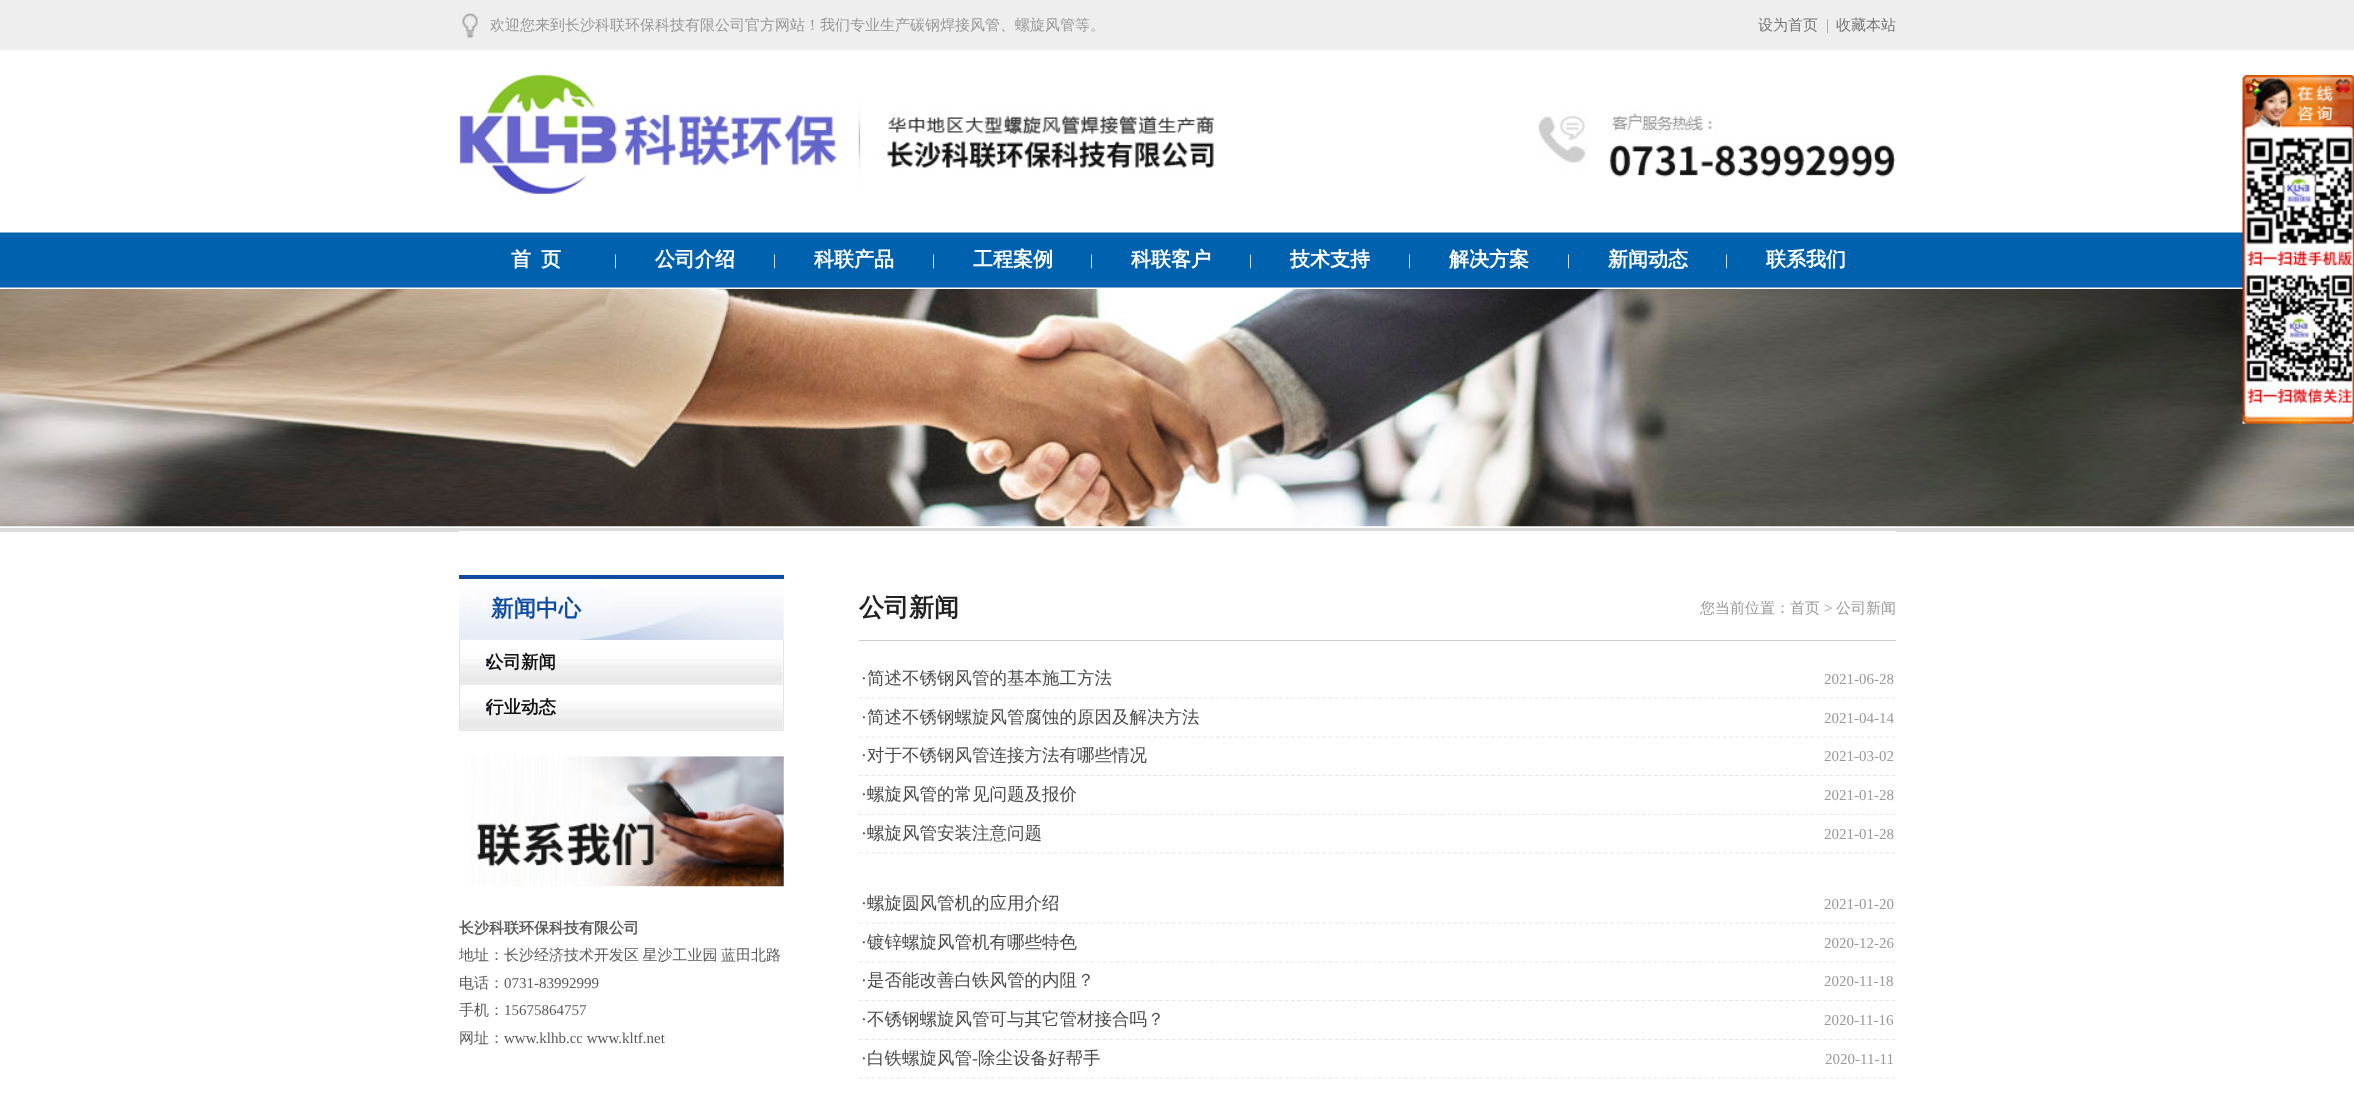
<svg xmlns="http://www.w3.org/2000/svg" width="2354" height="1118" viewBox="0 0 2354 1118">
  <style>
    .t1 { font: 500 15px WenQuanYi Zen Hei; fill: #999; }
    .t2 { font: 500 15px WenQuanYi Zen Hei; fill: #777; }
    .t3 { font: 15px Liberation Serif; fill: #999; }
    .t4 { font: bold 20px WenQuanYi Zen Hei; fill: #fff; }
    .t5 { font: 15px Liberation Serif; fill: #fff; }
    .t6 { font: bold 22.5px WenQuanYi Zen Hei; fill: #0e4ca3; }
    .t7 { font: bold 17.5px WenQuanYi Zen Hei; fill: #111; }
    .t8 { font: bold 15px WenQuanYi Zen Hei; fill: #5a5a5a; }
    .t9 { font: 500 15px WenQuanYi Zen Hei; fill: #5a5a5a; }
    .t10 { font: 15px Liberation Serif; fill: #5a5a5a; }
    .t11 { font: bold 25px WenQuanYi Zen Hei; fill: #222; }
    .t12 { font: 17.5px Liberation Serif; fill: #4a4a4a; }
    .t13 { font: 500 17.5px WenQuanYi Zen Hei; fill: #4a4a4a; }
  </style>
  <rect width="100%" height="100%" fill="#fff"/>
  <image x="0" y="0" width="2354" height="288" href="images/1.png"/>
  <image x="459" y="13" width="19" height="25" href="images/2.png"/>
  <text x="490" y="30" class="t1">欢迎您来到长沙科联环保科技有限公司官方网站！我们专业生产碳钢焊接风管、螺旋风管等。</text>
  <text x="1758" y="30" class="t2">设为首页</text>
  <text x="1826" y="30" class="t3">|</text>
  <text x="1836" y="30" class="t2">收藏本站</text>
  <image x="459" y="71" width="755" height="129" href="images/3.png"/>
  <image x="1538" y="110" width="358" height="67" href="images/4.png"/>
  <image x="2242" y="75" width="112" height="63" href="images/5.png"/>
  <image x="0" y="289" width="2354" height="238" href="images/10.png"/>
  <image x="2242" y="137" width="112" height="276" href="images/6.png"/>
  <image x="2246" y="137" width="107" height="138" href="images/7.png"/>
  <image x="2246" y="275" width="106" height="138" href="images/8.png"/>
  <image x="2242" y="412" width="112" height="12" href="images/9.png"/>
  <text x="511" y="266" class="t4">首</text>
  <text x="541" y="266" class="t4">页</text>
  <text x="614" y="265" class="t5">|</text>
  <text x="655" y="266" class="t4">公司介绍</text>
  <text x="773" y="265" class="t5">|</text>
  <text x="814" y="266" class="t4">科联产品</text>
  <text x="932" y="265" class="t5">|</text>
  <text x="973" y="266" class="t4">工程案例</text>
  <text x="1090" y="265" class="t5">|</text>
  <text x="1131" y="266" class="t4">科联客户</text>
  <text x="1249" y="265" class="t5">|</text>
  <text x="1290" y="266" class="t4">技术支持</text>
  <text x="1408" y="265" class="t5">|</text>
  <text x="1449" y="266" class="t4">解决方案</text>
  <text x="1567" y="265" class="t5">|</text>
  <text x="1608" y="266" class="t4">新闻动态</text>
  <text x="1725" y="265" class="t5">|</text>
  <text x="1766" y="266" class="t4">联系我们</text>
  <rect x="0" y="528" width="2354" height="4" fill="#dcdcdc"/>
  <rect x="459" y="531" width="1437" height="1" fill="#fff"/>
  <image x="459" y="579" width="325" height="61" href="images/11.png"/>
  <rect x="459" y="575" width="325" height="4" fill="#0e4ca3"/>
  <text x="491" y="616" class="t6">新闻中心</text>
  <rect x="783" y="640" width="1" height="91" fill="#e4e4e4"/>
  <rect x="459" y="730" width="325" height="1" fill="#e4e4e4"/>
  <rect x="459" y="640" width="1" height="91" fill="#e4e4e4"/>
  <image x="460" y="655" width="323" height="30" href="images/12.png"/>
  <text x="486" y="668" class="t7">公司新闻</text>
  <image x="460" y="700" width="323" height="30" href="images/13.png"/>
  <text x="486" y="713" class="t7">行业动态</text>
  <image x="470" y="756" width="314" height="131" href="images/14.png"/>
  <text x="459" y="933" class="t8">长沙科联环保科技有限公司</text>
  <text x="459" y="960" word-spacing="-1" class="t9">地址：长沙经济技术开发区 星沙工业园 蓝田北路</text>
  <text x="459" y="988" class="t9">电话：</text>
  <text x="504" y="988" class="t10">0731-83992999</text>
  <text x="459" y="1015" class="t9">手机：</text>
  <text x="504" y="1015" class="t10">15675864757</text>
  <text x="459" y="1043" class="t9">网址：</text>
  <text x="504" y="1043" class="t10">www.klhb.cc www.kltf.net</text>
  <rect x="859" y="640" width="1037" height="1" fill="#ccc"/>
  <text x="859" y="616" class="t11">公司新闻</text>
  <text x="1700" y="613" class="t1">您当前位置：首页</text>
  <text x="1824" y="613" class="t3">&gt;</text>
  <text x="1836" y="613" class="t1">公司新闻</text>
  <path d="M859 698H1896" fill="none" stroke="#e7e7e7" stroke-width="1.2" stroke-dasharray="3.75 2.51"/>
  <text x="861" y="684" class="t12">·</text>
  <text x="867" y="684" class="t13">简述不锈钢风管的基本施工方法</text>
  <text x="1824" y="684" class="t3">2021-06-28</text>
  <path d="M859 737H1896" fill="none" stroke="#e7e7e7" stroke-width="1.2" stroke-dasharray="3.75 2.51"/>
  <text x="861" y="723" class="t12">·</text>
  <text x="867" y="723" class="t13">简述不锈钢螺旋风管腐蚀的原因及解决方法</text>
  <text x="1824" y="723" class="t3">2021-04-14</text>
  <path d="M859 775.5H1896" fill="none" stroke="#e7e7e7" stroke-width="1.2" stroke-dasharray="3.75 2.51"/>
  <text x="861" y="761" class="t12">·</text>
  <text x="867" y="761" class="t13">对于不锈钢风管连接方法有哪些情况</text>
  <text x="1824" y="761" class="t3">2021-03-02</text>
  <path d="M859 814.5H1896" fill="none" stroke="#e7e7e7" stroke-width="1.2" stroke-dasharray="3.75 2.51"/>
  <text x="861" y="800" class="t12">·</text>
  <text x="867" y="800" class="t13">螺旋风管的常见问题及报价</text>
  <text x="1824" y="800" class="t3">2021-01-28</text>
  <path d="M859 853H1896" fill="none" stroke="#e7e7e7" stroke-width="1.2" stroke-dasharray="3.75 2.51"/>
  <text x="861" y="839" class="t12">·</text>
  <text x="867" y="839" class="t13">螺旋风管安装注意问题</text>
  <text x="1824" y="839" class="t3">2021-01-28</text>
  <path d="M859 923H1896" fill="none" stroke="#e7e7e7" stroke-width="1.2" stroke-dasharray="3.75 2.51"/>
  <text x="861" y="909" class="t12">·</text>
  <text x="867" y="909" class="t13">螺旋圆风管机的应用介绍</text>
  <text x="1824" y="909" class="t3">2021-01-20</text>
  <path d="M859 962H1896" fill="none" stroke="#e7e7e7" stroke-width="1.2" stroke-dasharray="3.75 2.51"/>
  <text x="861" y="948" class="t12">·</text>
  <text x="867" y="948" class="t13">镀锌螺旋风管机有哪些特色</text>
  <text x="1824" y="948" class="t3">2020-12-26</text>
  <path d="M859 1000.5H1896" fill="none" stroke="#e7e7e7" stroke-width="1.2" stroke-dasharray="3.75 2.51"/>
  <text x="861" y="986" class="t12">·</text>
  <text x="867" y="986" class="t13">是否能改善白铁风管的内阻？</text>
  <text x="1824" y="986" class="t3">2020-11-18</text>
  <path d="M859 1039.5H1896" fill="none" stroke="#e7e7e7" stroke-width="1.2" stroke-dasharray="3.75 2.51"/>
  <text x="861" y="1025" class="t12">·</text>
  <text x="867" y="1025" class="t13">不锈钢螺旋风管可与其它管材接合吗？</text>
  <text x="1824" y="1025" class="t3">2020-11-16</text>
  <path d="M859 1078H1896" fill="none" stroke="#e7e7e7" stroke-width="1.2" stroke-dasharray="3.75 2.51"/>
  <text x="861" y="1064" class="t12">·</text>
  <text x="867" y="1064" class="t13">白铁螺旋风管</text>
  <text x="972" y="1064" class="t12">-</text>
  <text x="978" y="1064" class="t13">除尘设备好帮手</text>
  <text x="1825" y="1064" class="t3">2020-11-11</text>
</svg>
